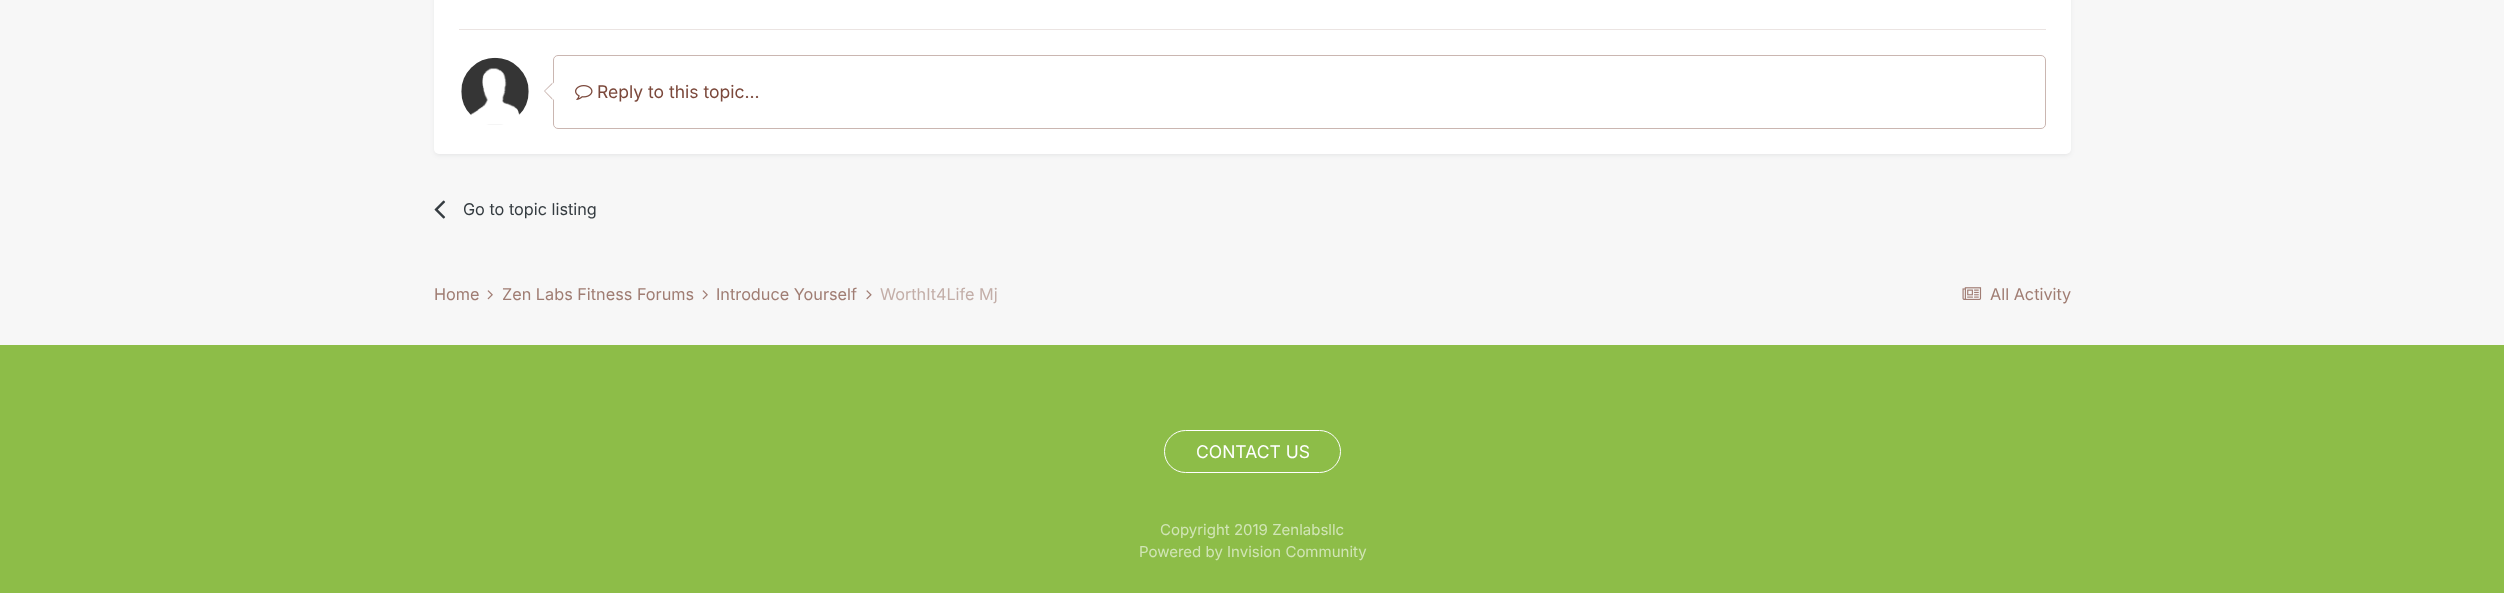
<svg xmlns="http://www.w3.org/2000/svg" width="2504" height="593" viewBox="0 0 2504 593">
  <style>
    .t1 { font: 17.5px Inter; fill: #7b483b; }
    .t2 { font: 16.25px Inter; fill: #353c41; }
    .t3 { font: 16.25px Inter; fill: #a07d73; }
    .t4 { font: 16.25px Inter; fill: #c3aea8; }
    .t5 { font: 17.5px Inter; fill: #fff; }
    .t6 { font: 15px Inter; fill: #d1e5b6; }
  </style>
  <rect width="100%" height="100%" fill="#f7f7f7"/>
  <rect x="435" y="-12" width="1635" height="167" rx="4" fill="#2d37481a" filter="blur(2.5px)"/>
  <rect x="434" y="-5" width="1637" height="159" rx="5" fill="#fff"/>
  <rect x="459" y="29" width="1587" height="1" fill="#ebe4e2"/>
  <image x="461" y="57" width="68" height="68" href="images/1.png"/>
  <rect x="553.5" y="55.5" width="1492" height="73" rx="4.5" fill="none" stroke="#cab6b1"/>
  <path d="M552.5 82.5V100L544 91Z" fill="#cab6b1"/>
  <path d="M554 82.5V100L545 91Z" fill="#fff"/>
  <image x="575" y="85" width="18" height="15" href="images/2.png"/>
  <text x="597" y="98" class="t1">Reply to this topic...</text>
  <image x="434" y="200" width="12" height="19" href="images/3.png"/>
  <text x="463" y="215" class="t2">Go to topic listing</text>
  <text x="434" y="300" class="t3">Home</text>
  <image x="487" y="290" width="6" height="10" href="images/4.png"/>
  <text x="502" y="300" class="t3">Zen Labs Fitness Forums</text>
  <image x="702" y="290" width="6" height="10" href="images/4.png"/>
  <text x="716" y="300" class="t3">Introduce Yourself</text>
  <image x="866" y="290" width="6" height="10" href="images/5.png"/>
  <text x="880" y="300" class="t4">WorthIt4Life Mj</text>
  <image x="1962" y="287" width="20" height="13" href="images/6.png"/>
  <text x="1990" y="300" class="t3">All Activity</text>
  <rect x="0" y="345" width="2504" height="248" fill="#8dbd48"/>
  <rect x="1164.5" y="430.5" width="176" height="42" rx="21" fill="none" stroke="#fff"/>
  <text x="1196" y="458" class="t5">CONTACT US</text>
  <text x="1160" y="535" class="t6">Copyright 2019 Zenlabsllc</text>
  <text x="1139" y="557" class="t6">Powered by Invision Community</text>
</svg>
